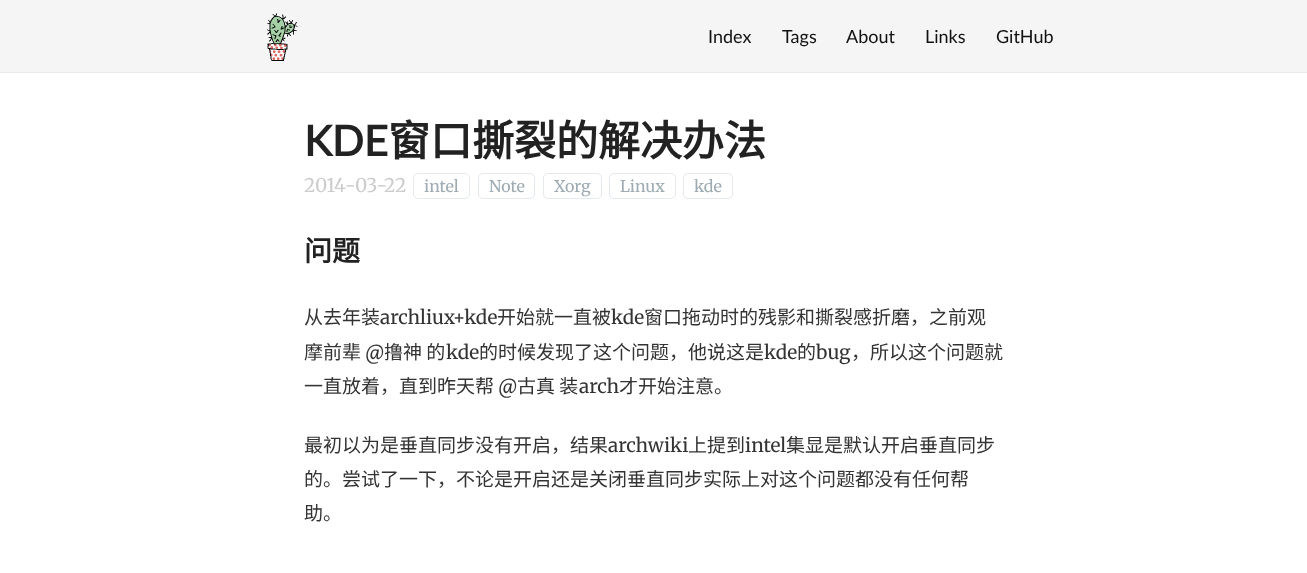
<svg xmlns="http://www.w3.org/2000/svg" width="1307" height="573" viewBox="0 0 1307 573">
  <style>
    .t1 { font: 18px Lato; fill: #111; }
    .t2 { font: bold 42px Lato; fill: #222; }
    .t3 { font: bold 42px Noto Sans CJK SC; fill: #222; }
    .t4 { font: 19px Merriweather; fill: #ccc; }
    .t5 { font: 16px Merriweather; fill: #9eabb3; }
    .t6 { font: bold 28px Noto Sans CJK SC; fill: #222; }
    .t7 { font: 19px Noto Sans CJK SC; fill: #333; }
    .t8 { font: 19px Merriweather; fill: #333; }
  </style>
  <rect width="100%" height="100%" fill="#fff"/>
  <rect x="0" y="0" width="1307" height="72" fill="#f5f5f5"/>
  <rect x="0" y="72" width="1307" height="1" fill="#eaeaea"/>
  <image x="267" y="13" width="31" height="48" href="images/1.png"/>
  <text x="708" y="43" class="t1">Index</text>
  <text x="782" y="43" class="t1">Tags</text>
  <text x="846" y="43" class="t1">About</text>
  <text x="925" y="43" class="t1">Links</text>
  <text x="996" y="43" class="t1">GitHub</text>
  <text x="304" y="156" class="t2">KDE</text>
  <text x="388" y="156" class="t3">窗口撕裂的解决办法</text>
  <text x="304" y="192" class="t4">2014-03-22</text>
  <rect x="413.5" y="173.5" width="56" height="25" rx="4.5" fill="none" stroke="#e3e9ed"/>
  <text x="424" y="192" class="t5">intel</text>
  <rect x="478.5" y="173.5" width="56" height="25" rx="4.5" fill="none" stroke="#e3e9ed"/>
  <text x="489" y="192" class="t5">Note</text>
  <rect x="543.5" y="173.5" width="58" height="25" rx="4.5" fill="none" stroke="#e3e9ed"/>
  <text x="554" y="192" class="t5">Xorg</text>
  <rect x="609.5" y="173.5" width="66" height="25" rx="4.5" fill="none" stroke="#e3e9ed"/>
  <text x="620" y="192" class="t5">Linux</text>
  <rect x="683.5" y="173.5" width="49" height="25" rx="4.5" fill="none" stroke="#e3e9ed"/>
  <text x="694" y="192" class="t5">kde</text>
  <text x="304" y="261" class="t6">问题</text>
  <text x="304" y="324" class="t7">从去年装</text>
  <text x="380" y="324" class="t8">archliux+kde</text>
  <text x="497" y="324" class="t7">开始就一直被</text>
  <text x="611" y="324" class="t8">kde</text>
  <text x="644" y="324" class="t7">窗口拖动时的残影和撕裂感折磨，之前观</text>
  <text x="304" y="359" class="t7">摩前辈</text>
  <text x="365" y="359" class="t8">@</text>
  <text x="384" y="359" class="t7">撸神 的</text>
  <text x="446" y="359" class="t8">kde</text>
  <text x="479" y="359" class="t7">的时候发现了这个问题，他说这是</text>
  <text x="764" y="359" class="t8">kde</text>
  <text x="797" y="359" class="t7">的</text>
  <text x="816" y="359" class="t8">bug</text>
  <text x="851" y="359" class="t7">，所以这个问题就</text>
  <text x="304" y="393" class="t7">一直放着，直到昨天帮</text>
  <text x="498" y="393" class="t8">@</text>
  <text x="517" y="393" class="t7">古真 装</text>
  <text x="579" y="393" class="t8">arch</text>
  <text x="619" y="393" class="t7">才开始注意。</text>
  <text x="304" y="452" class="t7">最初以为是垂直同步没有开启，结果</text>
  <text x="608" y="452" class="t8">archwiki</text>
  <text x="688" y="452" class="t7">上提到</text>
  <text x="745" y="452" class="t8">intel</text>
  <text x="786" y="452" class="t7">集显是默认开启垂直同步</text>
  <text x="304" y="486" class="t7">的。尝试了一下，不论是开启还是关闭垂直同步实际上对这个问题都没有任何帮</text>
  <text x="304" y="520" class="t7">助。</text>
</svg>
